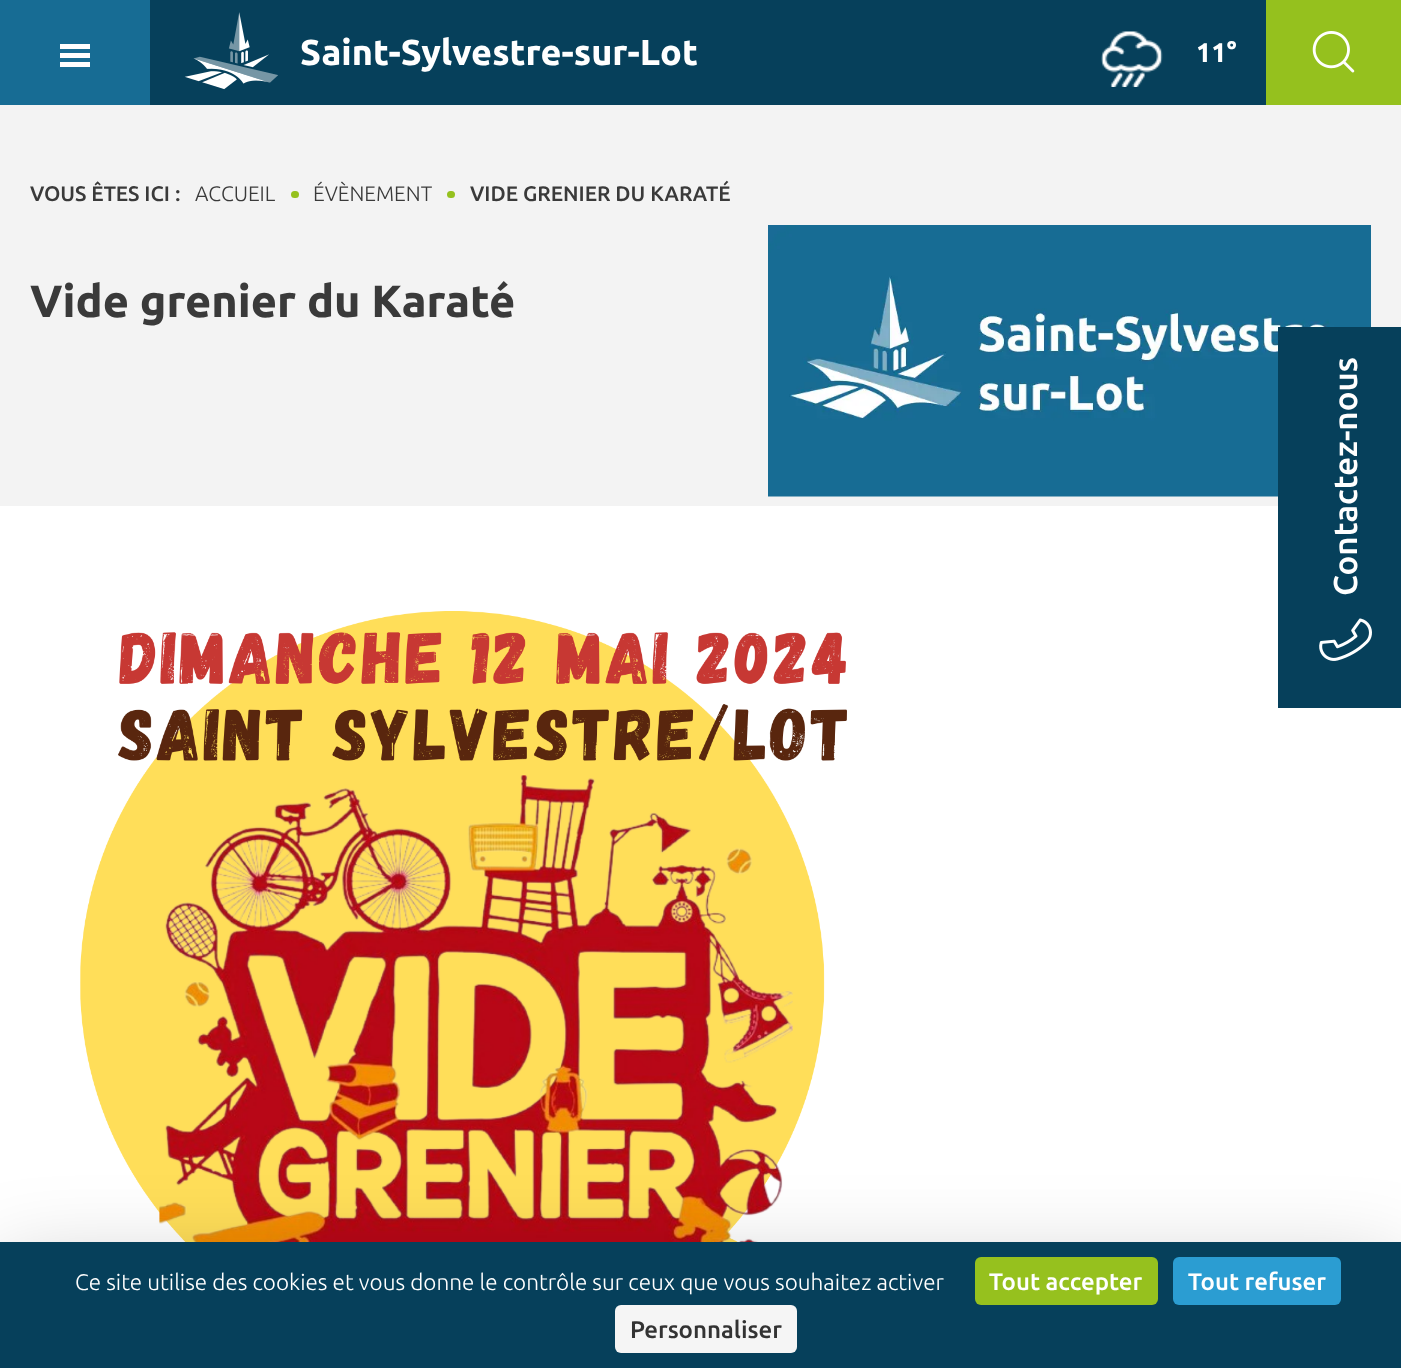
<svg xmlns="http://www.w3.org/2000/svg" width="1401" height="1368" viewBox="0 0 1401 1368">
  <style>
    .t1 { font: bold 36px Ubuntu; fill: #fff; }
    .t2 { font: bold 27px Ubuntu; fill: #fff; }
    .t3 { font: 500 21px Ubuntu; fill: #3a3a3a; }
    .t4 { font: 300 21px Ubuntu; fill: #3a3a3a; }
    .t5 { font: bold 45px Ubuntu; fill: #3a3a3a; }
    .t6 { font: 500 33px Ubuntu; fill: #fff; }
    .t7 { font: 300 22.5px Ubuntu; fill: #fff; }
    .t8 { font: 500 24px Ubuntu; fill: #fff; }
    .t9 { font: 500 24px Ubuntu; fill: #333; }
  </style>
  <rect width="100%" height="100%" fill="#fff"/>
  <rect x="150" y="0" width="1116" height="105" fill="#06405b"/>
  <rect x="0" y="0" width="150" height="105" fill="#176c94"/>
  <rect x="60" y="53" width="30" height="5" fill="#fff"/>
  <rect x="60" y="44" width="30" height="5" fill="#fff"/>
  <rect x="60" y="62" width="30" height="5" fill="#fff"/>
  <image x="184" y="12" width="94" height="78" href="images/1.png"/>
  <text x="300" y="65" class="t1">Saint-Sylvestre-sur-Lot</text>
  <image x="1101" y="31" width="62" height="56" href="images/2.png"/>
  <text x="1196" y="62" class="t2">11°</text>
  <rect x="1266" y="0" width="135" height="105" fill="#95c11e"/>
  <image x="1312" y="31" width="43" height="42" href="images/3.png"/>
  <rect x="0" y="105" width="1401" height="401" fill="#f3f3f3"/>
  <text x="30" y="201" class="t3">VOUS ÊTES ICI :</text>
  <text x="195" y="201" class="t4">ACCUEIL</text>
  <rect x="291" y="191" width="8" height="7" rx="3.5" fill="#95c11e"/>
  <text x="313" y="201" class="t4">ÉVÈNEMENT</text>
  <rect x="447" y="191" width="8" height="7" rx="3.5" fill="#95c11e"/>
  <text x="470" y="201" class="t3">VIDE GRENIER DU KARATÉ</text>
  <text x="30" y="317" class="t5">Vide grenier du Karaté</text>
  <image x="768" y="225" width="603" height="272" href="images/4.png"/>
  <image x="80" y="611" width="780" height="631" href="images/5.png"/>
  <rect x="1278" y="327" width="123" height="381" fill="#06405b"/>
  <text x="1357" y="596" transform="rotate(-90 1357 596)" class="t6">Contactez-nous</text>
  <image x="1319" y="618" width="53" height="43" href="images/6.png"/>
  <rect x="0" y="1272" width="1401" height="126" fill="#00000040" filter="blur(45px)"/>
  <rect x="0" y="1242" width="1401" height="126" fill="#06405b"/>
  <text x="75" y="1290" class="t7">Ce site utilise des cookies et vous donne le contrôle sur ceux que vous souhaitez activer</text>
  <rect x="975" y="1257" width="183" height="48" rx="6" fill="#96c11e"/>
  <text x="989" y="1290" class="t8">Tout accepter</text>
  <rect x="1173" y="1257" width="168" height="48" rx="6" fill="#2b9dd2"/>
  <text x="1188" y="1290" class="t8">Tout refuser</text>
  <rect x="615" y="1305" width="182" height="48" rx="6" fill="#f5f5f5"/>
  <text x="630" y="1338" class="t9">Personnaliser</text>
</svg>
